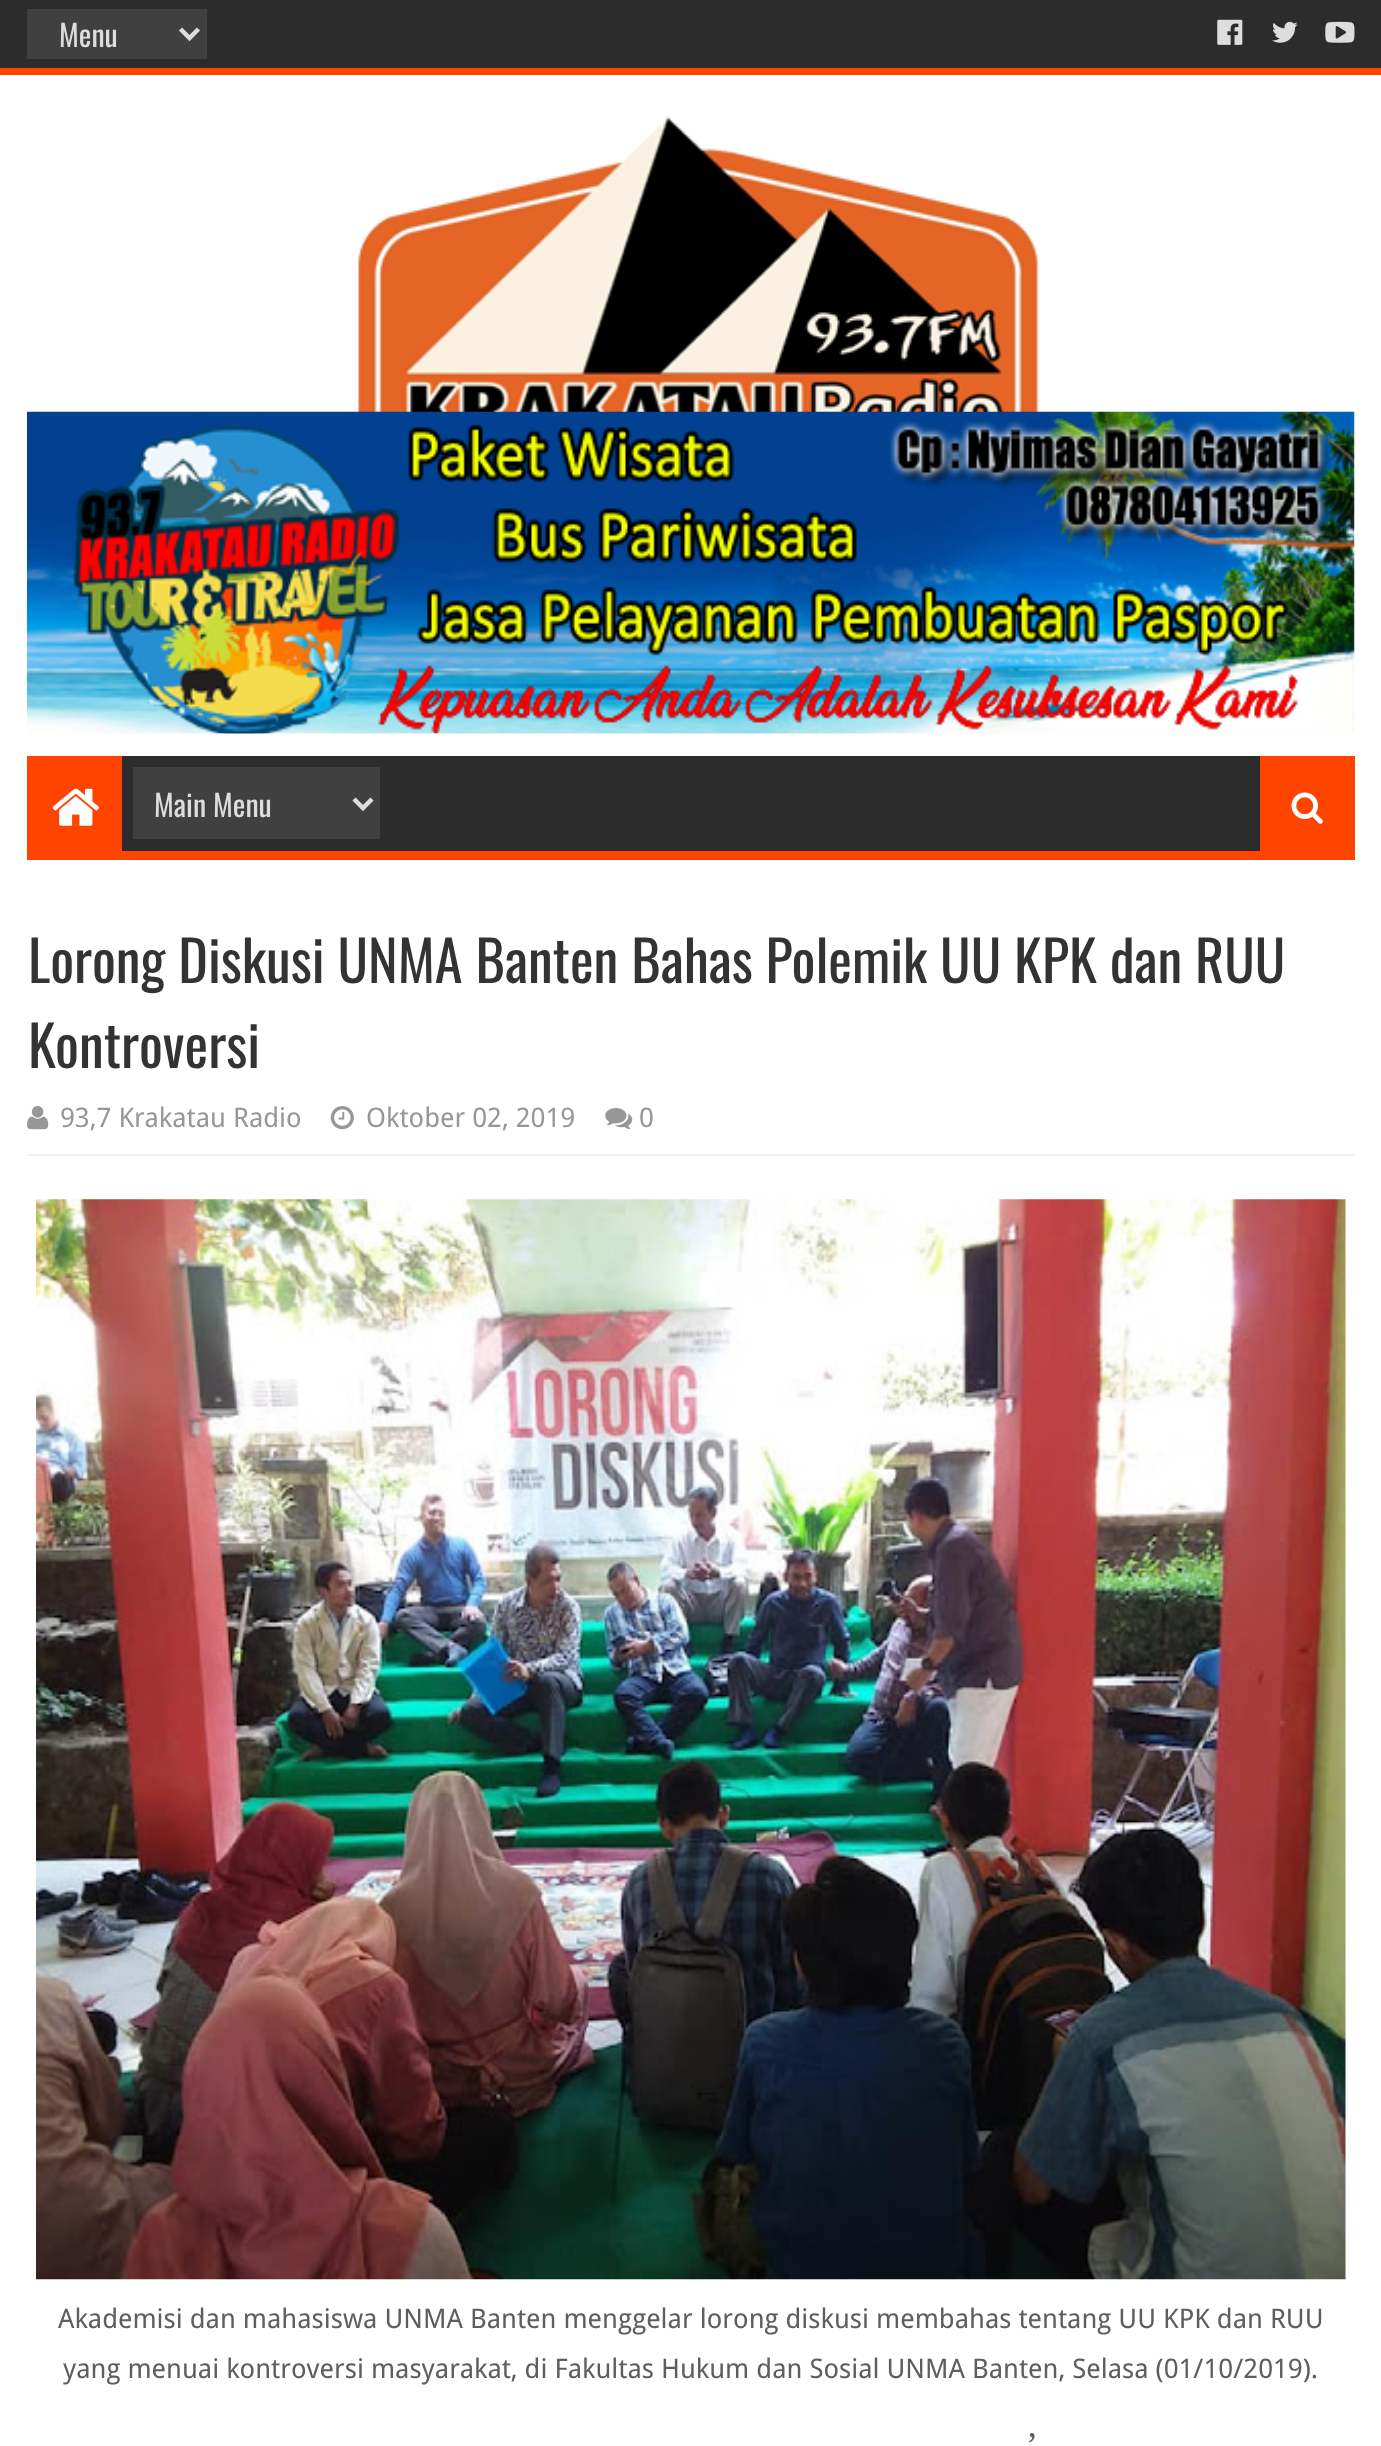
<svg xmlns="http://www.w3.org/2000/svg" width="1381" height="2446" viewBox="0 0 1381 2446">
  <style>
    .t1 { font: 30px Oswald; fill: #ddd; }
    .t2 { font: 56.25px Oswald; fill: #333; }
    .t3 { font: 27px Droid Sans; fill: #979797; }
    .t4 { font: 27px Droid Sans; fill: #5e5e5e; }
    .t5 { font: 36px Liberation Serif; fill: #5e5e5e; }
  </style>
  <rect width="100%" height="100%" fill="#fff"/>
  <rect x="0" y="0" width="1381" height="68" fill="#2c2c2c"/>
  <rect x="0" y="68" width="1381" height="7" fill="#f40"/>
  <rect x="27" y="9" width="180" height="50" fill="#404040"/>
  <path d="M180.5 29L189.5 38L198.5 29" fill="none" stroke="#ddd" stroke-width="4.5"/>
  <text x="59" y="47" class="t1">Menu</text>
  <image x="1217" y="19" width="26" height="26" href="images/1.png"/>
  <image x="1272" y="21" width="26" height="22" href="images/2.png"/>
  <image x="1325" y="21" width="30" height="22" href="images/3.png"/>
  <image x="358" y="116" width="682" height="296" href="images/4.png"/>
  <image x="27" y="411" width="1328" height="323" href="images/5.png"/>
  <rect x="122" y="756" width="1138" height="95" fill="#2c2c2c"/>
  <rect x="27" y="851" width="1328" height="9" fill="#f40"/>
  <rect x="27" y="756" width="95" height="95" fill="#f40"/>
  <image x="52" y="788" width="47" height="38" href="images/6.png"/>
  <rect x="133" y="767" width="247" height="72" fill="#404040"/>
  <path d="M354 799L363 808L372 799" fill="none" stroke="#ddd" stroke-width="4.5"/>
  <text x="154" y="817" class="t1">Main Menu</text>
  <rect x="1260" y="756" width="95" height="95" fill="#f40"/>
  <image x="1291" y="792" width="32" height="32" href="images/7.png"/>
  <text x="28" y="983" class="t2">Lorong Diskusi UNMA Banten Bahas Polemik UU KPK dan RUU</text>
  <text x="28" y="1068" class="t2">Kontroversi</text>
  <rect x="27" y="1154" width="1328" height="2" fill="#f2f2f2"/>
  <image x="27" y="1106" width="22" height="24" href="images/8.png"/>
  <text x="60" y="1127" class="t3">93,7 Krakatau Radio</text>
  <image x="330" y="1106" width="24" height="24" href="images/9.png"/>
  <text x="366" y="1127" class="t3">Oktober 02, 2019</text>
  <image x="605" y="1108" width="28" height="22" href="images/10.png"/>
  <text x="639" y="1127" class="t3">0</text>
  <image x="36" y="1199" width="1310" height="1081" href="images/11.png"/>
  <text x="58" y="2328" class="t4">Akademisi dan mahasiswa UNMA Banten menggelar lorong diskusi membahas tentang UU KPK dan RUU</text>
  <text x="63" y="2378" class="t4">yang menuai kontroversi masyarakat, di Fakultas Hukum dan Sosial UNMA Banten, Selasa (01/10/2019).</text>
  <text x="1026" y="2457" class="t5">’</text>
</svg>
